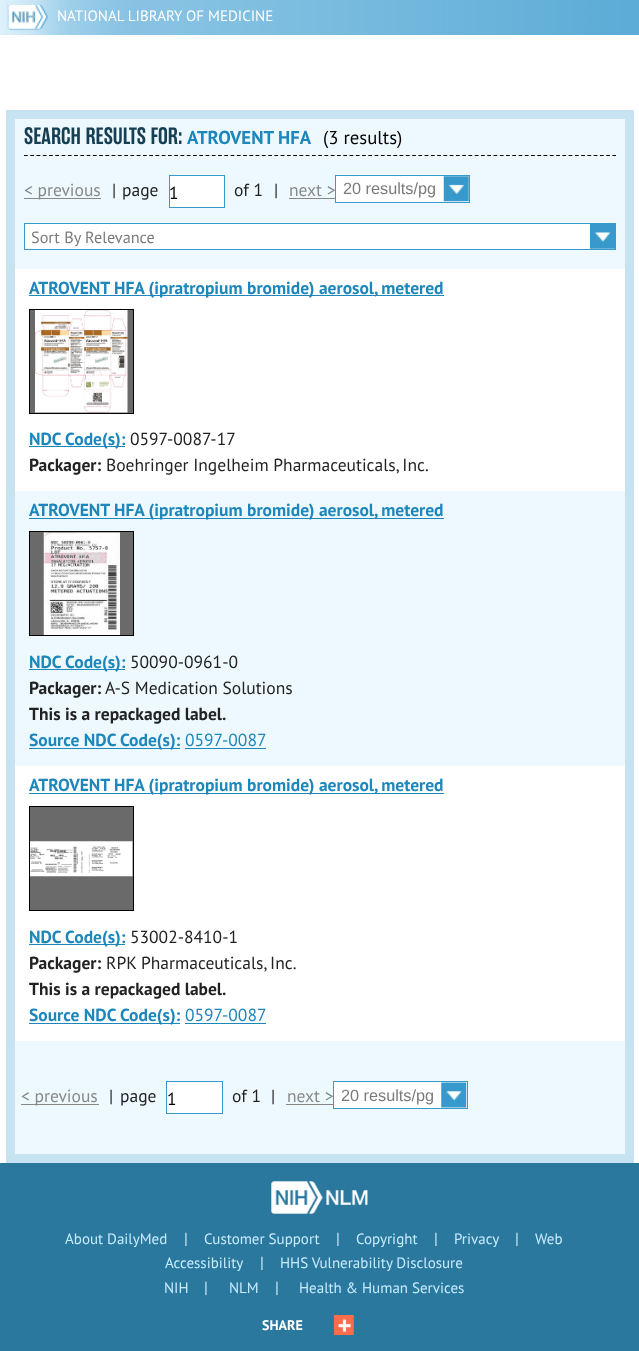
<svg xmlns="http://www.w3.org/2000/svg" width="639" height="1351" viewBox="0 0 639 1351">
  <style>
    .t1 { font: 15px PT Sans; fill: #fff; }
    .t2 { font: 600 23.75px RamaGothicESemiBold; fill: #173f54; }
    .t3 { font: bold 18.75px PT Sans; fill: #1d86bb; }
    .t4 { font: 18.75px PT Sans; fill: #000; }
    .t5 { font: 17.5px PT Sans; fill: #888; }
    .t6 { font: 17.5px PT Sans; fill: #222; }
    .t7 { font: 17.5px PT Sans; fill: #000; }
    .t8 { font: 16.25px Liberation Sans; fill: #7b7b7b; }
    .t9 { font: 16.25px PT Sans; fill: #7b7b7b; }
    .t10 { font: bold 17.5px PT Sans; fill: #1d86bb; }
    .t11 { font: bold 17.5px PT Sans; fill: #222; }
    .t12 { font: 17.5px PT Sans; fill: #1d86bb; }
    .t13 { font: 15px PT Sans; fill: #c7ecff; }
    .t14 { font: 16.25px PT Sans; fill: #c7ecff; }
    .t15 { font: bold 14px PT Sans; fill: #fff; }
  </style>
  <rect width="100%" height="100%" fill="#fff"/>
  <image x="0" y="0" width="639" height="35" href="images/1.png"/>
  <image x="7" y="5" width="42" height="26" href="images/2.png"/>
  <text x="57" y="21" class="t1">NATIONAL LIBRARY OF MEDICINE</text>
  <rect x="10.5" y="114.5" width="619" height="1044" fill="none" stroke="#c7e2f1" stroke-width="9"/>
  <rect x="15" y="119" width="610" height="150" fill="#edf9ff"/>
  <path d="M24 155.5H616" fill="none" stroke="#000" stroke-width="1.2" stroke-dasharray="3.75 2.51"/>
  <text x="24" y="144" class="t2">SEARCH RESULTS FOR:</text>
  <text x="187" y="144" class="t3">ATROVENT HFA</text>
  <text x="323" y="144" class="t4">(3 results)</text>
  <rect x="24" y="198" width="77" height="1" fill="#888"/>
  <text x="24" y="196" class="t5">&lt; previous</text>
  <text x="112" y="196" class="t6">|</text>
  <text x="122" y="196" class="t6">page</text>
  <rect x="169.5" y="175.5" width="55" height="32" fill="#fff" stroke="#3899cc"/>
  <text x="169" y="199" class="t7">1</text>
  <text x="234" y="196" class="t6">of 1</text>
  <text x="274" y="196" class="t6">|</text>
  <text x="289" y="196" class="t5">next &gt;</text>
  <rect x="289" y="198" width="46" height="1" fill="#888"/>
  <rect x="336" y="176" width="133" height="26" fill="#fff"/>
  <image x="443" y="176" width="26" height="26" href="images/3.png"/>
  <rect x="335.5" y="175.5" width="134" height="27" fill="none" stroke="#3899cc"/>
  <text x="343" y="194" class="t8">20 results/pg</text>
  <rect x="25" y="224" width="590" height="25" fill="#fff"/>
  <image x="590" y="224" width="25" height="25" href="images/4.png"/>
  <rect x="24.5" y="223.5" width="591" height="26" fill="none" stroke="#3899cc"/>
  <text x="31" y="243" class="t9">Sort By Relevance</text>
  <rect x="29" y="295" width="415" height="1" fill="#1d86bb"/>
  <text x="29" y="294" class="t10">ATROVENT HFA (ipratropium bromide) aerosol, metered</text>
  <rect x="29.5" y="309.5" width="104" height="104" fill="#6a6a6a" stroke="#000"/>
  <image x="35" y="310" width="93" height="103" href="images/5.png"/>
  <rect x="29" y="446" width="96" height="1" fill="#1d86bb"/>
  <text x="29" y="445" class="t10">NDC Code(s):</text>
  <text x="130" y="445" class="t6">0597-0087-17</text>
  <text x="29" y="471" class="t11">Packager:</text>
  <text x="106" y="471" class="t6">Boehringer Ingelheim Pharmaceuticals, Inc.</text>
  <rect x="15" y="491" width="610" height="275" fill="#edf9ff"/>
  <rect x="29" y="518" width="415" height="1" fill="#1d86bb"/>
  <text x="29" y="516" class="t10">ATROVENT HFA (ipratropium bromide) aerosol, metered</text>
  <rect x="29.5" y="531.5" width="104" height="104" fill="#6a6a6a" stroke="#000"/>
  <image x="43" y="532" width="77" height="103" href="images/6.png"/>
  <rect x="29" y="669" width="96" height="1" fill="#1d86bb"/>
  <text x="29" y="668" class="t10">NDC Code(s):</text>
  <text x="130" y="668" class="t6">50090-0961-0</text>
  <text x="29" y="694" class="t11">Packager:</text>
  <text x="105" y="694" class="t6">A-S Medication Solutions</text>
  <text x="29" y="720" class="t11">This is a repackaged label.</text>
  <rect x="29" y="748" width="151" height="1" fill="#1d86bb"/>
  <text x="29" y="746" class="t10">Source NDC Code(s):</text>
  <text x="185" y="746" class="t12">0597-0087</text>
  <rect x="185" y="748" width="81" height="1" fill="#1d86bb"/>
  <rect x="29" y="793" width="415" height="1" fill="#1d86bb"/>
  <text x="29" y="791" class="t10">ATROVENT HFA (ipratropium bromide) aerosol, metered</text>
  <rect x="29.5" y="806.5" width="104" height="104" fill="#6a6a6a" stroke="#000"/>
  <image x="30" y="841" width="103" height="36" href="images/7.png"/>
  <rect x="29" y="944" width="96" height="1" fill="#1d86bb"/>
  <text x="29" y="943" class="t10">NDC Code(s):</text>
  <text x="130" y="943" class="t6">53002-8410-1</text>
  <text x="29" y="969" class="t11">Packager:</text>
  <text x="106" y="969" class="t6">RPK Pharmaceuticals, Inc.</text>
  <text x="29" y="995" class="t11">This is a repackaged label.</text>
  <rect x="29" y="1023" width="151" height="1" fill="#1d86bb"/>
  <text x="29" y="1021" class="t10">Source NDC Code(s):</text>
  <text x="185" y="1021" class="t12">0597-0087</text>
  <rect x="185" y="1023" width="81" height="1" fill="#1d86bb"/>
  <rect x="15" y="1041" width="610" height="113" fill="#edf9ff"/>
  <rect x="21" y="1104" width="78" height="1" fill="#888"/>
  <text x="21" y="1102" class="t5">&lt; previous</text>
  <text x="109" y="1102" class="t6">|</text>
  <text x="120" y="1102" class="t6">page</text>
  <rect x="166.5" y="1081.5" width="56" height="32" fill="#fff" stroke="#3899cc"/>
  <text x="167" y="1105" class="t7">1</text>
  <text x="232" y="1102" class="t6">of 1</text>
  <text x="271" y="1102" class="t6">|</text>
  <text x="287" y="1102" class="t5">next &gt;</text>
  <rect x="286" y="1104" width="47" height="1" fill="#888"/>
  <rect x="334" y="1082" width="133" height="26" fill="#fff"/>
  <image x="441" y="1082" width="26" height="26" href="images/8.png"/>
  <rect x="333.5" y="1081.5" width="134" height="27" fill="none" stroke="#3899cc"/>
  <text x="341" y="1101" class="t8">20 results/pg</text>
  <rect x="0" y="1163" width="639" height="188" fill="#2b789f"/>
  <image x="271" y="1181" width="97" height="33" href="images/9.png"/>
  <text x="65" y="1244" class="t13">About DailyMed</text>
  <text x="184" y="1244" class="t14">|</text>
  <text x="204" y="1244" class="t13">Customer Support</text>
  <text x="336" y="1244" class="t14">|</text>
  <text x="356" y="1244" class="t13">Copyright</text>
  <text x="434" y="1244" class="t14">|</text>
  <text x="454" y="1244" class="t13">Privacy</text>
  <text x="515" y="1244" class="t14">|</text>
  <text x="535" y="1244" class="t13">Web</text>
  <text x="165" y="1268" class="t13">Accessibility</text>
  <text x="260" y="1268" class="t14">|</text>
  <text x="280" y="1268" class="t13">HHS Vulnerability Disclosure</text>
  <text x="164" y="1293" class="t13">NIH</text>
  <text x="204" y="1293" class="t14">|</text>
  <text x="229" y="1293" class="t13">NLM</text>
  <text x="275" y="1293" class="t14">|</text>
  <text x="299" y="1293" class="t13">Health &amp; Human Services</text>
  <text x="262" y="1330" class="t15">SHARE</text>
  <image x="333" y="1315" width="21" height="20" href="images/10.png"/>
</svg>
